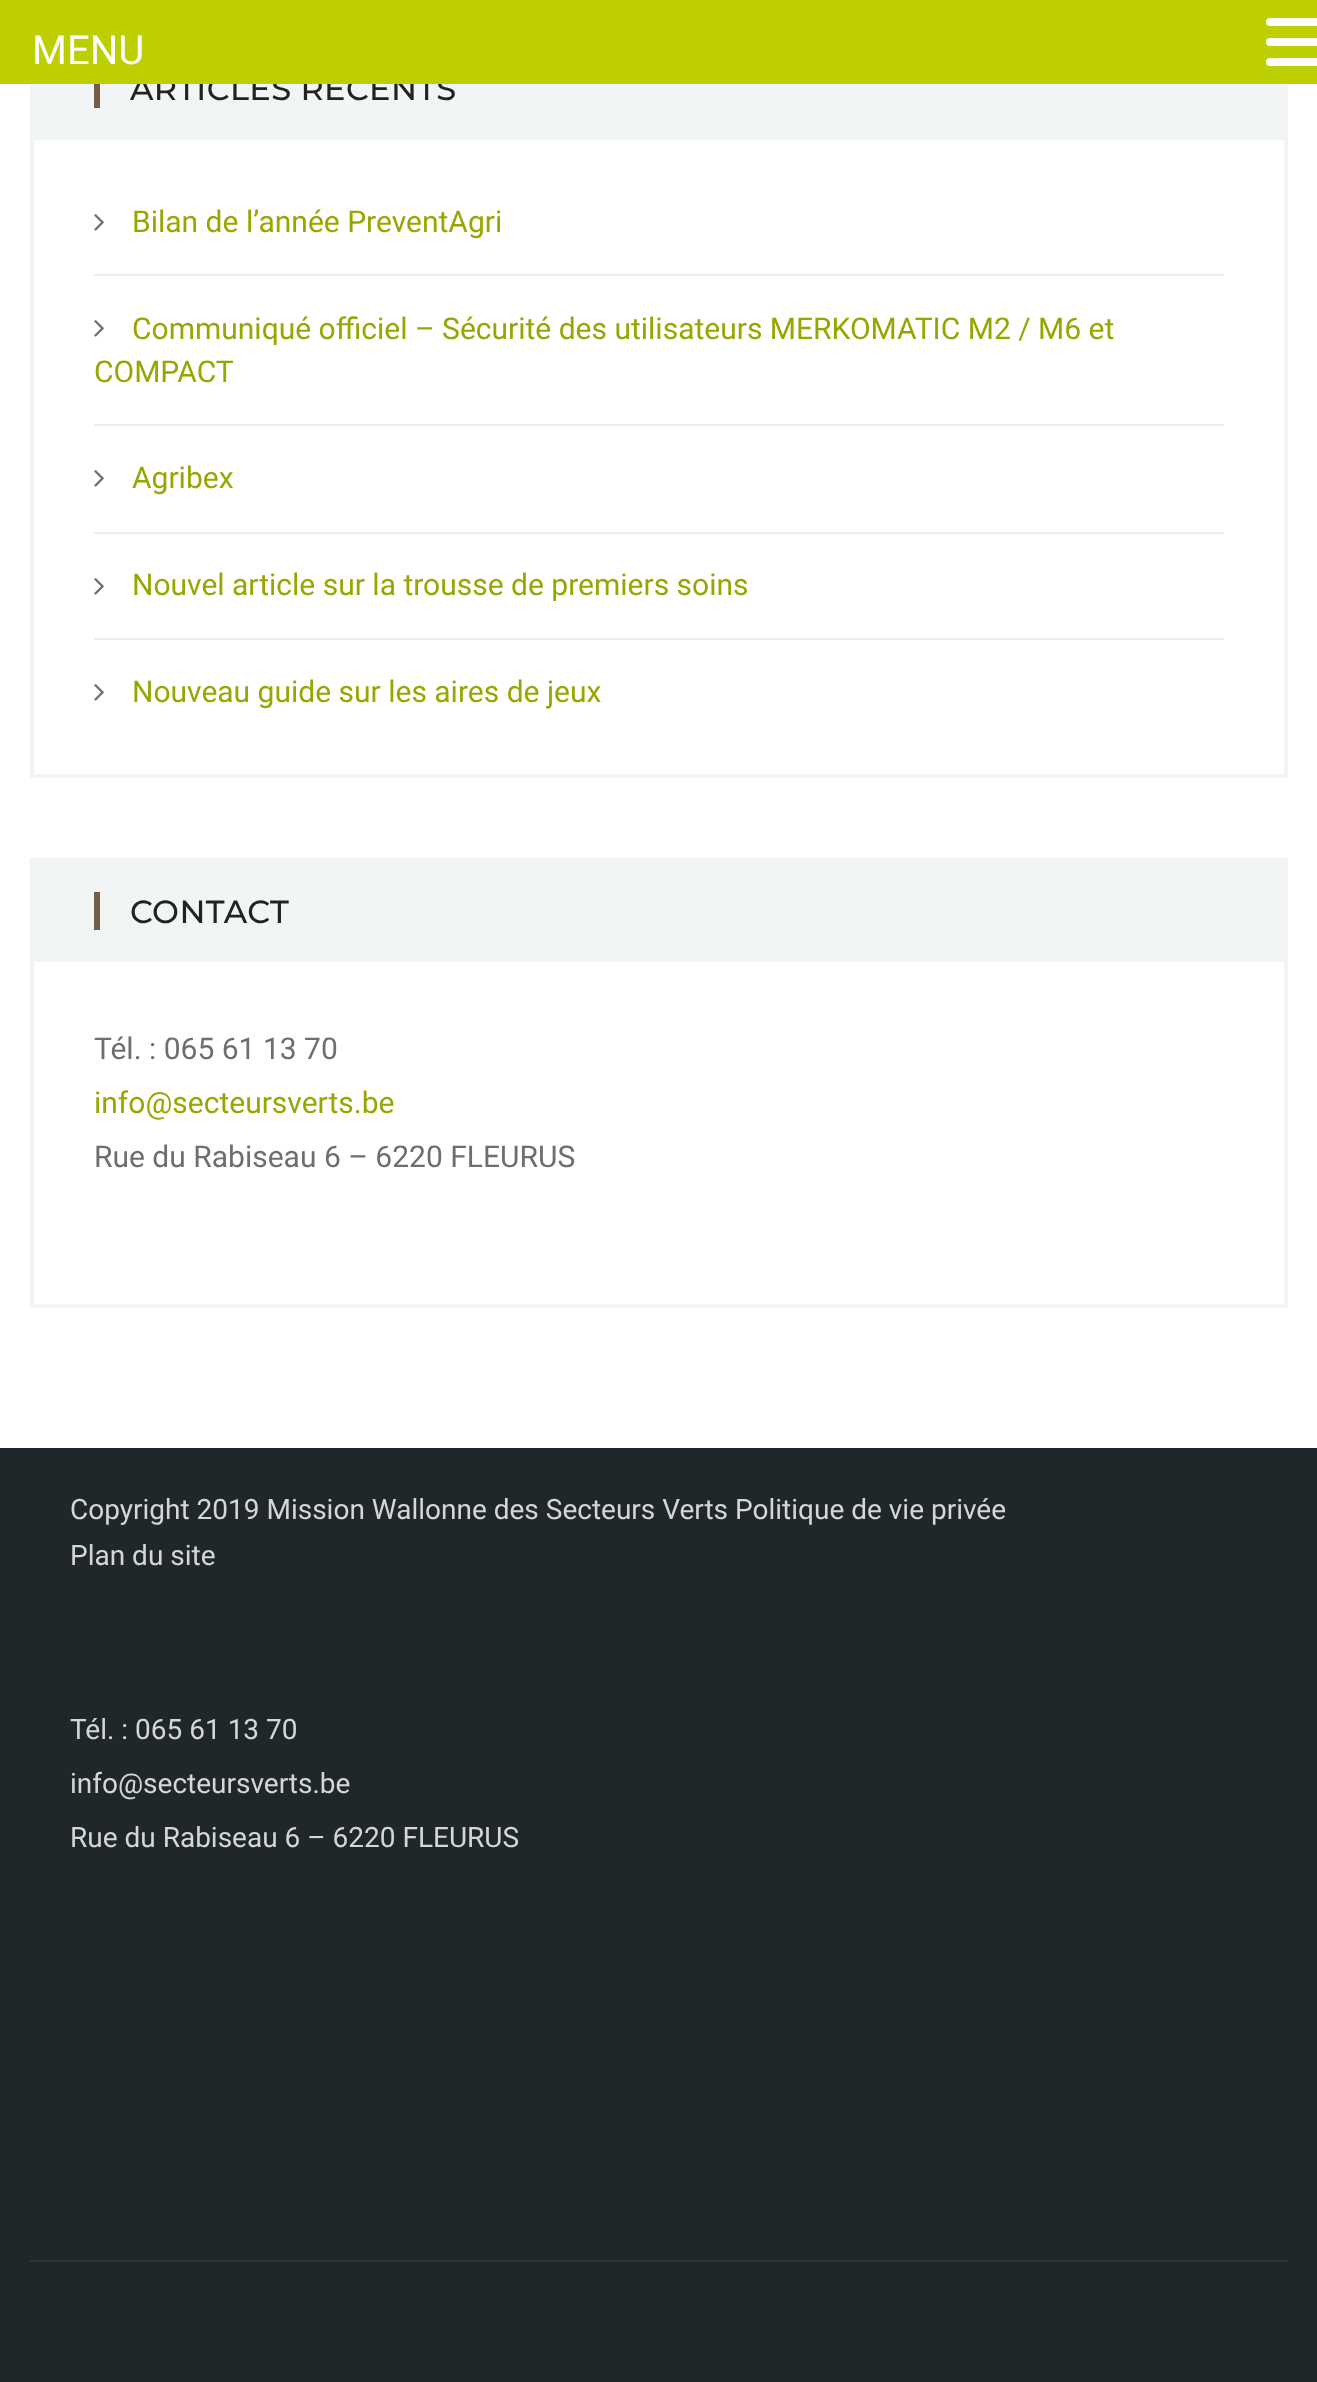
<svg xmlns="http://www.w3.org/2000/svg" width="1317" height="2382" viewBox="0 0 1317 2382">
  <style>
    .t1 { font: 500 32px Montserrat; letter-spacing: 0.4px; fill: #222; }
    .t2 { font: 40px Roboto; fill: #fff; }
    .t3 { font: 30px Roboto; fill: #98a600; }
    .t4 { font: 30px Roboto; fill: #6e6e6e; }
    .t5 { font: 28px Roboto; fill: #d6d6d6; }
  </style>
  <rect width="100%" height="100%" fill="#fff"/>
  <rect x="32" y="38" width="1254" height="738" fill="none" stroke="#f2f5f6" stroke-width="4"/>
  <rect x="34" y="84" width="1250" height="56" fill="#f2f5f6"/>
  <text x="130" y="100" class="t1">ARTICLES RÉCENTS</text>
  <rect x="0" y="0" width="1317" height="84" fill="#bdcf01"/>
  <text x="32" y="64" class="t2">MENU</text>
  <rect x="1266" y="18" width="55" height="8" rx="4" fill="#fff"/>
  <rect x="1266" y="38" width="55" height="8" rx="4" fill="#fff"/>
  <rect x="1266" y="58" width="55" height="8" rx="4" fill="#fff"/>
  <rect x="94" y="84" width="6" height="24" fill="#775c45"/>
  <rect x="94" y="274" width="1130" height="2" fill="#eee"/>
  <image x="94" y="214" width="10" height="17" href="images/1.png"/>
  <text x="132" y="232" class="t3">Bilan de l’année PreventAgri</text>
  <rect x="94" y="424" width="1130" height="2" fill="#eee"/>
  <image x="94" y="320" width="10" height="17" href="images/1.png"/>
  <text x="132" y="339" class="t3">Communiqué officiel – Sécurité des utilisateurs MERKOMATIC M2 / M6 et</text>
  <text x="94" y="382" class="t3">COMPACT</text>
  <rect x="94" y="532" width="1130" height="2" fill="#eee"/>
  <image x="94" y="470" width="10" height="17" href="images/1.png"/>
  <text x="132" y="488" class="t3">Agribex</text>
  <rect x="94" y="638" width="1130" height="2" fill="#eee"/>
  <image x="94" y="578" width="10" height="17" href="images/1.png"/>
  <text x="132" y="595" class="t3">Nouvel article sur la trousse de premiers soins</text>
  <image x="94" y="684" width="10" height="17" href="images/1.png"/>
  <text x="132" y="702" class="t3">Nouveau guide sur les aires de jeux</text>
  <rect x="32" y="860" width="1254" height="446" fill="none" stroke="#f2f5f6" stroke-width="4"/>
  <rect x="34" y="862" width="1250" height="100" fill="#f2f5f6"/>
  <text x="130" y="923" class="t1">CONTACT</text>
  <rect x="94" y="892" width="6" height="38" fill="#775c45"/>
  <text x="94" y="1059" class="t4">Tél. : 065 61 13 70</text>
  <text x="94" y="1113" class="t3">info@secteursverts.be</text>
  <text x="94" y="1167" class="t4">Rue du Rabiseau 6 – 6220 FLEURUS</text>
  <rect x="0" y="1448" width="1317" height="934" fill="#1f272b"/>
  <text x="70" y="1519" class="t5">Copyright 2019 Mission Wallonne des Secteurs Verts Politique de vie privée</text>
  <text x="70" y="1565" class="t5">Plan du site</text>
  <text x="70" y="1739" class="t5">Tél. : 065 61 13 70</text>
  <text x="70" y="1793" class="t5">info@secteursverts.be</text>
  <text x="70" y="1847" class="t5">Rue du Rabiseau 6 – 6220 FLEURUS</text>
  <rect x="30" y="2260" width="1258" height="2" fill="#2c3437"/>
</svg>
